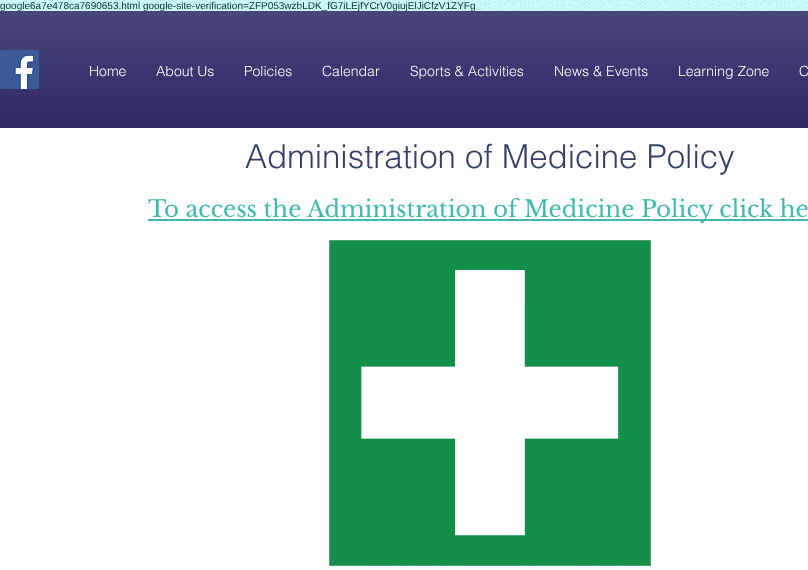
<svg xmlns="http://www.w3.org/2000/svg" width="808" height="570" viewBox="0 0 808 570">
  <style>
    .t1 { font: 10px Liberation Sans; fill: #023232; }
    .t2 { font: 300 14px helvetica; fill: #fff; }
    .t3 { font: 300 33px helvetica; fill: #343f64; }
    .t4 { font: 23px Libre Baskerville; fill: #41baae; }
  </style>
  <rect width="100%" height="100%" fill="#cefefe"/>
  <text x="0" y="9" class="t1">google6a7e478ca7690653.html google-site-verification=ZFP053wzbLDK_fG7iLEjfYCrV0giujElJiCfzV1ZYFg</text>
  <image x="0" y="0" width="808" height="11" href="images/1.png"/>
  <rect x="0" y="11" width="808" height="117" fill="#0b064d"/>
  <image x="0" y="11" width="808" height="117" href="images/2.png"/>
  <image x="0" y="50" width="39" height="39" href="images/3.png"/>
  <text x="89" y="76" class="t2">Home</text>
  <text x="156" y="76" class="t2">About Us</text>
  <text x="244" y="76" class="t2">Policies</text>
  <text x="322" y="76" class="t2">Calendar</text>
  <text x="410" y="76" class="t2">Sports &amp; Activities</text>
  <text x="554" y="76" class="t2">News &amp; Events</text>
  <text x="678" y="76" class="t2">Learning Zone</text>
  <text x="799" y="76" class="t2">C</text>
  <rect x="0" y="128" width="808" height="442" fill="#fff"/>
  <text x="245" y="168" class="t3">Administration of Medicine Policy</text>
  <rect x="148" y="219" width="660" height="2" fill="#41baae"/>
  <text x="148" y="217" class="t4">To access the Administration of Medicine Policy click he</text>
  <image x="329" y="240" width="322" height="326" href="images/4.png"/>
</svg>
